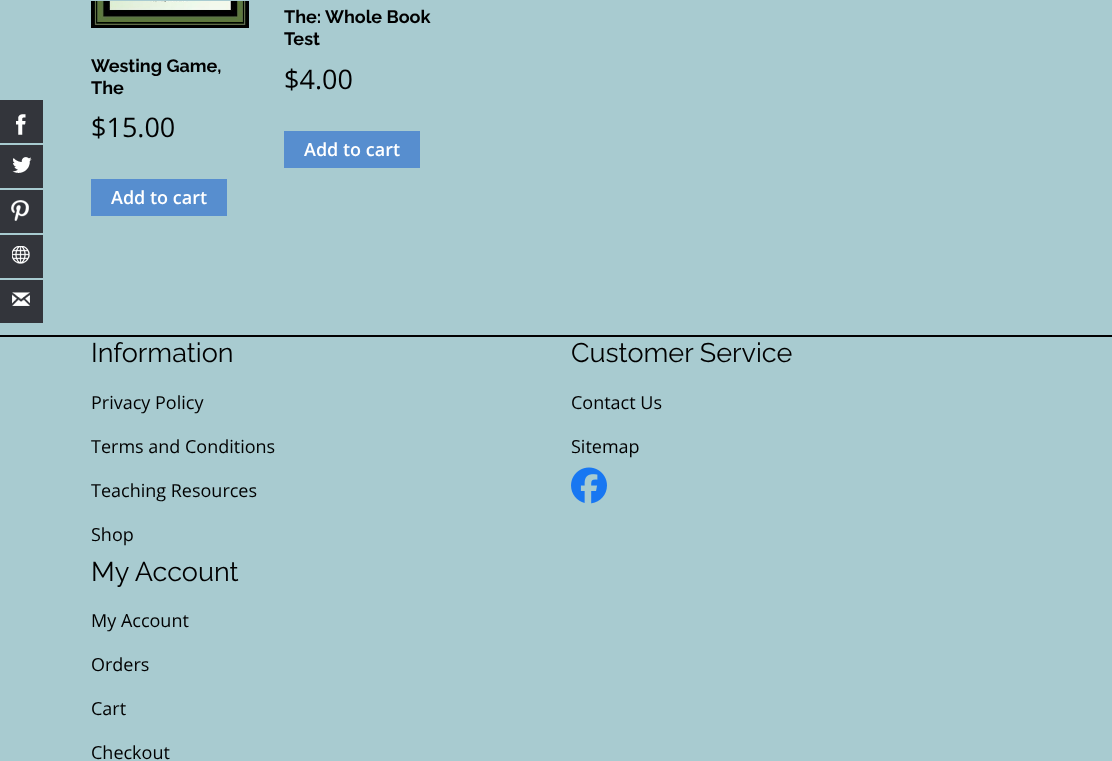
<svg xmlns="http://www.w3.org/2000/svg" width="1112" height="761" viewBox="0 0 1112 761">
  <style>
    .t1 { font: bold 18px Raleway; fill: #000; }
    .t2 { font: 27px Open Sans; fill: #000; }
    .t3 { font: 600 18px Open Sans; fill: #fff; }
    .t4 { font: 27px Raleway; fill: #000; }
    .t5 { font: 18px Open Sans; fill: #000; }
  </style>
  <rect width="100%" height="100%" fill="#a8cbd0"/>
  <rect x="0" y="100" width="43" height="43" fill="#33353b"/>
  <image x="16" y="114" width="10" height="21" href="images/1.png"/>
  <rect x="0" y="145" width="43" height="43" fill="#33353b"/>
  <image x="12" y="157" width="20" height="16" href="images/2.png"/>
  <rect x="0" y="190" width="43" height="43" fill="#33353b"/>
  <image x="11" y="200" width="18" height="21" href="images/3.png"/>
  <rect x="0" y="235" width="43" height="43" fill="#33353b"/>
  <image x="12" y="246" width="18" height="18" href="images/4.png"/>
  <rect x="0" y="280" width="43" height="43" fill="#33353b"/>
  <image x="12" y="292" width="18" height="14" href="images/5.png"/>
  <image x="91" y="1" width="158" height="27" href="images/6.png"/>
  <text x="91" y="72" class="t1">Westing Game,</text>
  <text x="91" y="94" class="t1">The</text>
  <text x="91" y="137" class="t2">$15.00</text>
  <rect x="91" y="179" width="136" height="37" fill="#578ecf"/>
  <text x="111" y="204" class="t3">Add to cart</text>
  <text x="284" y="23" class="t1">The: Whole Book</text>
  <text x="284" y="45" class="t1">Test</text>
  <text x="284" y="89" class="t2">$4.00</text>
  <rect x="284" y="131" width="136" height="37" fill="#578ecf"/>
  <text x="304" y="156" class="t3">Add to cart</text>
  <rect x="0" y="335" width="1112" height="2" fill="#000"/>
  <text x="91" y="362" class="t4">Information</text>
  <text x="91" y="409" class="t5">Privacy Policy</text>
  <text x="91" y="453" class="t5">Terms and Conditions</text>
  <text x="91" y="497" class="t5">Teaching Resources</text>
  <text x="91" y="541" class="t5">Shop</text>
  <text x="571" y="362" class="t4">Customer Service</text>
  <text x="571" y="409" class="t5">Contact Us</text>
  <text x="571" y="453" class="t5">Sitemap</text>
  <image x="571" y="467" width="36" height="37" href="images/7.png"/>
  <text x="91" y="581" class="t4">My Account</text>
  <text x="91" y="627" class="t5">My Account</text>
  <text x="91" y="671" class="t5">Orders</text>
  <text x="91" y="715" class="t5">Cart</text>
  <text x="91" y="759" class="t5">Checkout</text>
</svg>
